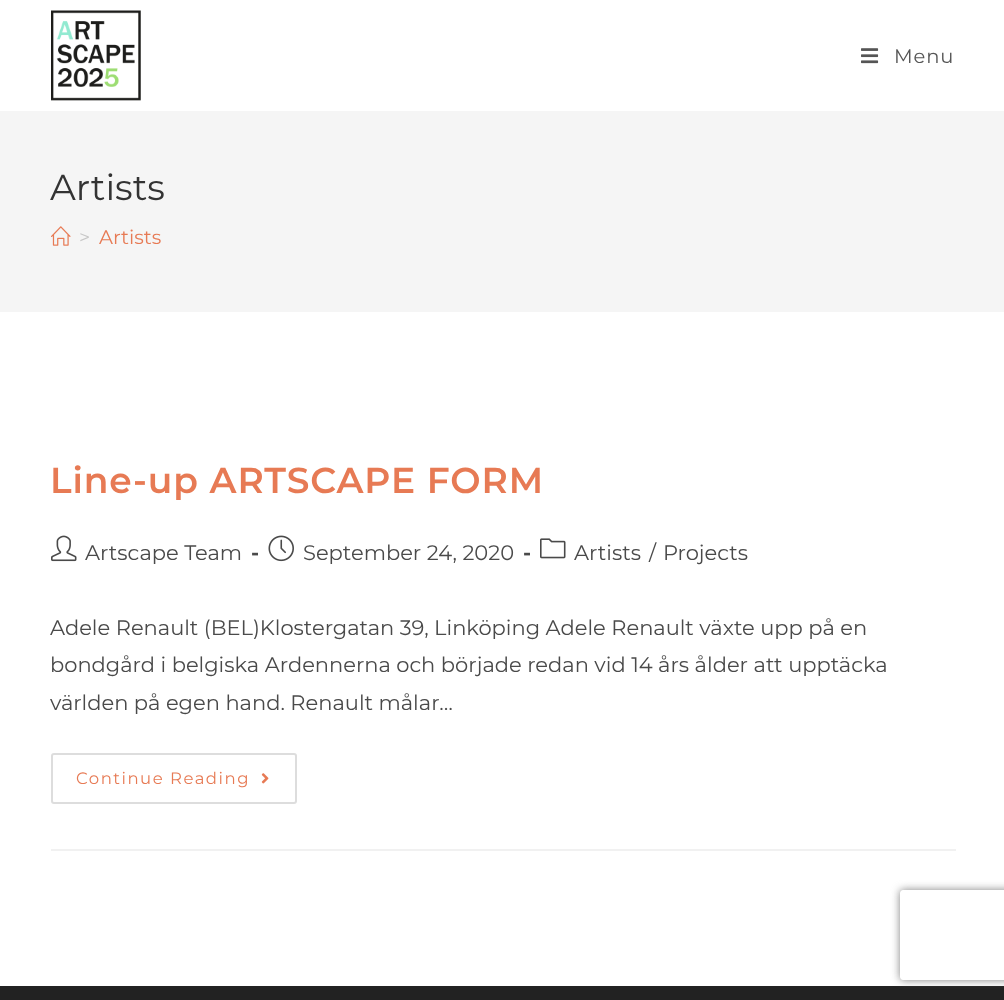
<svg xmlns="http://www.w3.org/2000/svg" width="1004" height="1000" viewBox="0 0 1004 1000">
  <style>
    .t1 { font: 19.5px Montserrat; letter-spacing: 0.9px; fill: #555; }
    .t2 { font: 36px Montserrat; fill: #333; }
    .t3 { font: 19.5px Montserrat; fill: #c6c6c6; }
    .t4 { font: 19.5px Montserrat; fill: #e77a54; }
    .t5 { font: 600 36px Montserrat; letter-spacing: 0.9px; fill: #e77a54; }
    .t6 { font: 21px Montserrat; fill: #4a4a4a; }
    .t7 { font: bold 21px Montserrat; fill: #4a4a4a; }
    .t8 { font: 16.5px Montserrat; letter-spacing: 1.5px; fill: #e77a54; }
  </style>
  <defs>
    <clipPath id="clip1"><path d="M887 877H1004V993H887ZM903 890H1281C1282.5 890 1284 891.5 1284 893V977C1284 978.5 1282.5 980 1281 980H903C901.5 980 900 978.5 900 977V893C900 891.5 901.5 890 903 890Z" clip-rule="evenodd"/></clipPath>
  </defs>
  <rect width="100%" height="100%" fill="#fff"/>
  <image x="51" y="10" width="90" height="91" href="images/1.png"/>
  <image x="861" y="48" width="18" height="16" href="images/2.png"/>
  <text x="894" y="63" class="t1">Menu</text>
  <rect x="0" y="111" width="1004" height="201" fill="#f5f5f5"/>
  <text x="50" y="200" class="t2">Artists</text>
  <image x="51" y="226" width="20" height="20" href="images/3.png"/>
  <text x="79" y="244" class="t3">&gt;</text>
  <text x="99" y="244" class="t4">Artists</text>
  <rect x="51" y="849" width="905" height="2" fill="#f1f1f1"/>
  <text x="50" y="493" class="t5">Line-up ARTSCAPE FORM</text>
  <image x="51" y="535" width="26" height="27" href="images/4.png"/>
  <text x="85" y="560" class="t6">Artscape Team</text>
  <text x="251" y="560" class="t7">-</text>
  <image x="268" y="535" width="26" height="27" href="images/5.png"/>
  <text x="303" y="560" class="t6">September 24, 2020</text>
  <text x="523" y="560" class="t7">-</text>
  <image x="540" y="538" width="26" height="21" href="images/6.png"/>
  <text x="574" y="560" class="t6">Artists</text>
  <text x="649" y="560" class="t6">/</text>
  <text x="663" y="560" class="t6">Projects</text>
  <text x="50" y="635" class="t6">Adele Renault (BEL)Klostergatan 39, Linköping Adele Renault växte upp på en</text>
  <text x="50" y="672" class="t6">bondgård i belgiska Ardennerna och började redan vid 14 års ålder att upptäcka</text>
  <text x="50" y="710" class="t6">världen på egen hand. Renault målar…</text>
  <rect x="52" y="754" width="244" height="49" rx="2" fill="none" stroke="#ddd" stroke-width="2"/>
  <text x="76" y="784" class="t8">Continue Reading</text>
  <image x="261" y="773" width="8" height="11" href="images/7.png"/>
  <rect x="0" y="986" width="1004" height="14" fill="#222"/>
  <g clip-path="url(#clip1)">
    <rect x="900" y="890" width="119" height="90" rx="3" fill="#808080" filter="blur(4px)"/>
  </g>
</svg>
